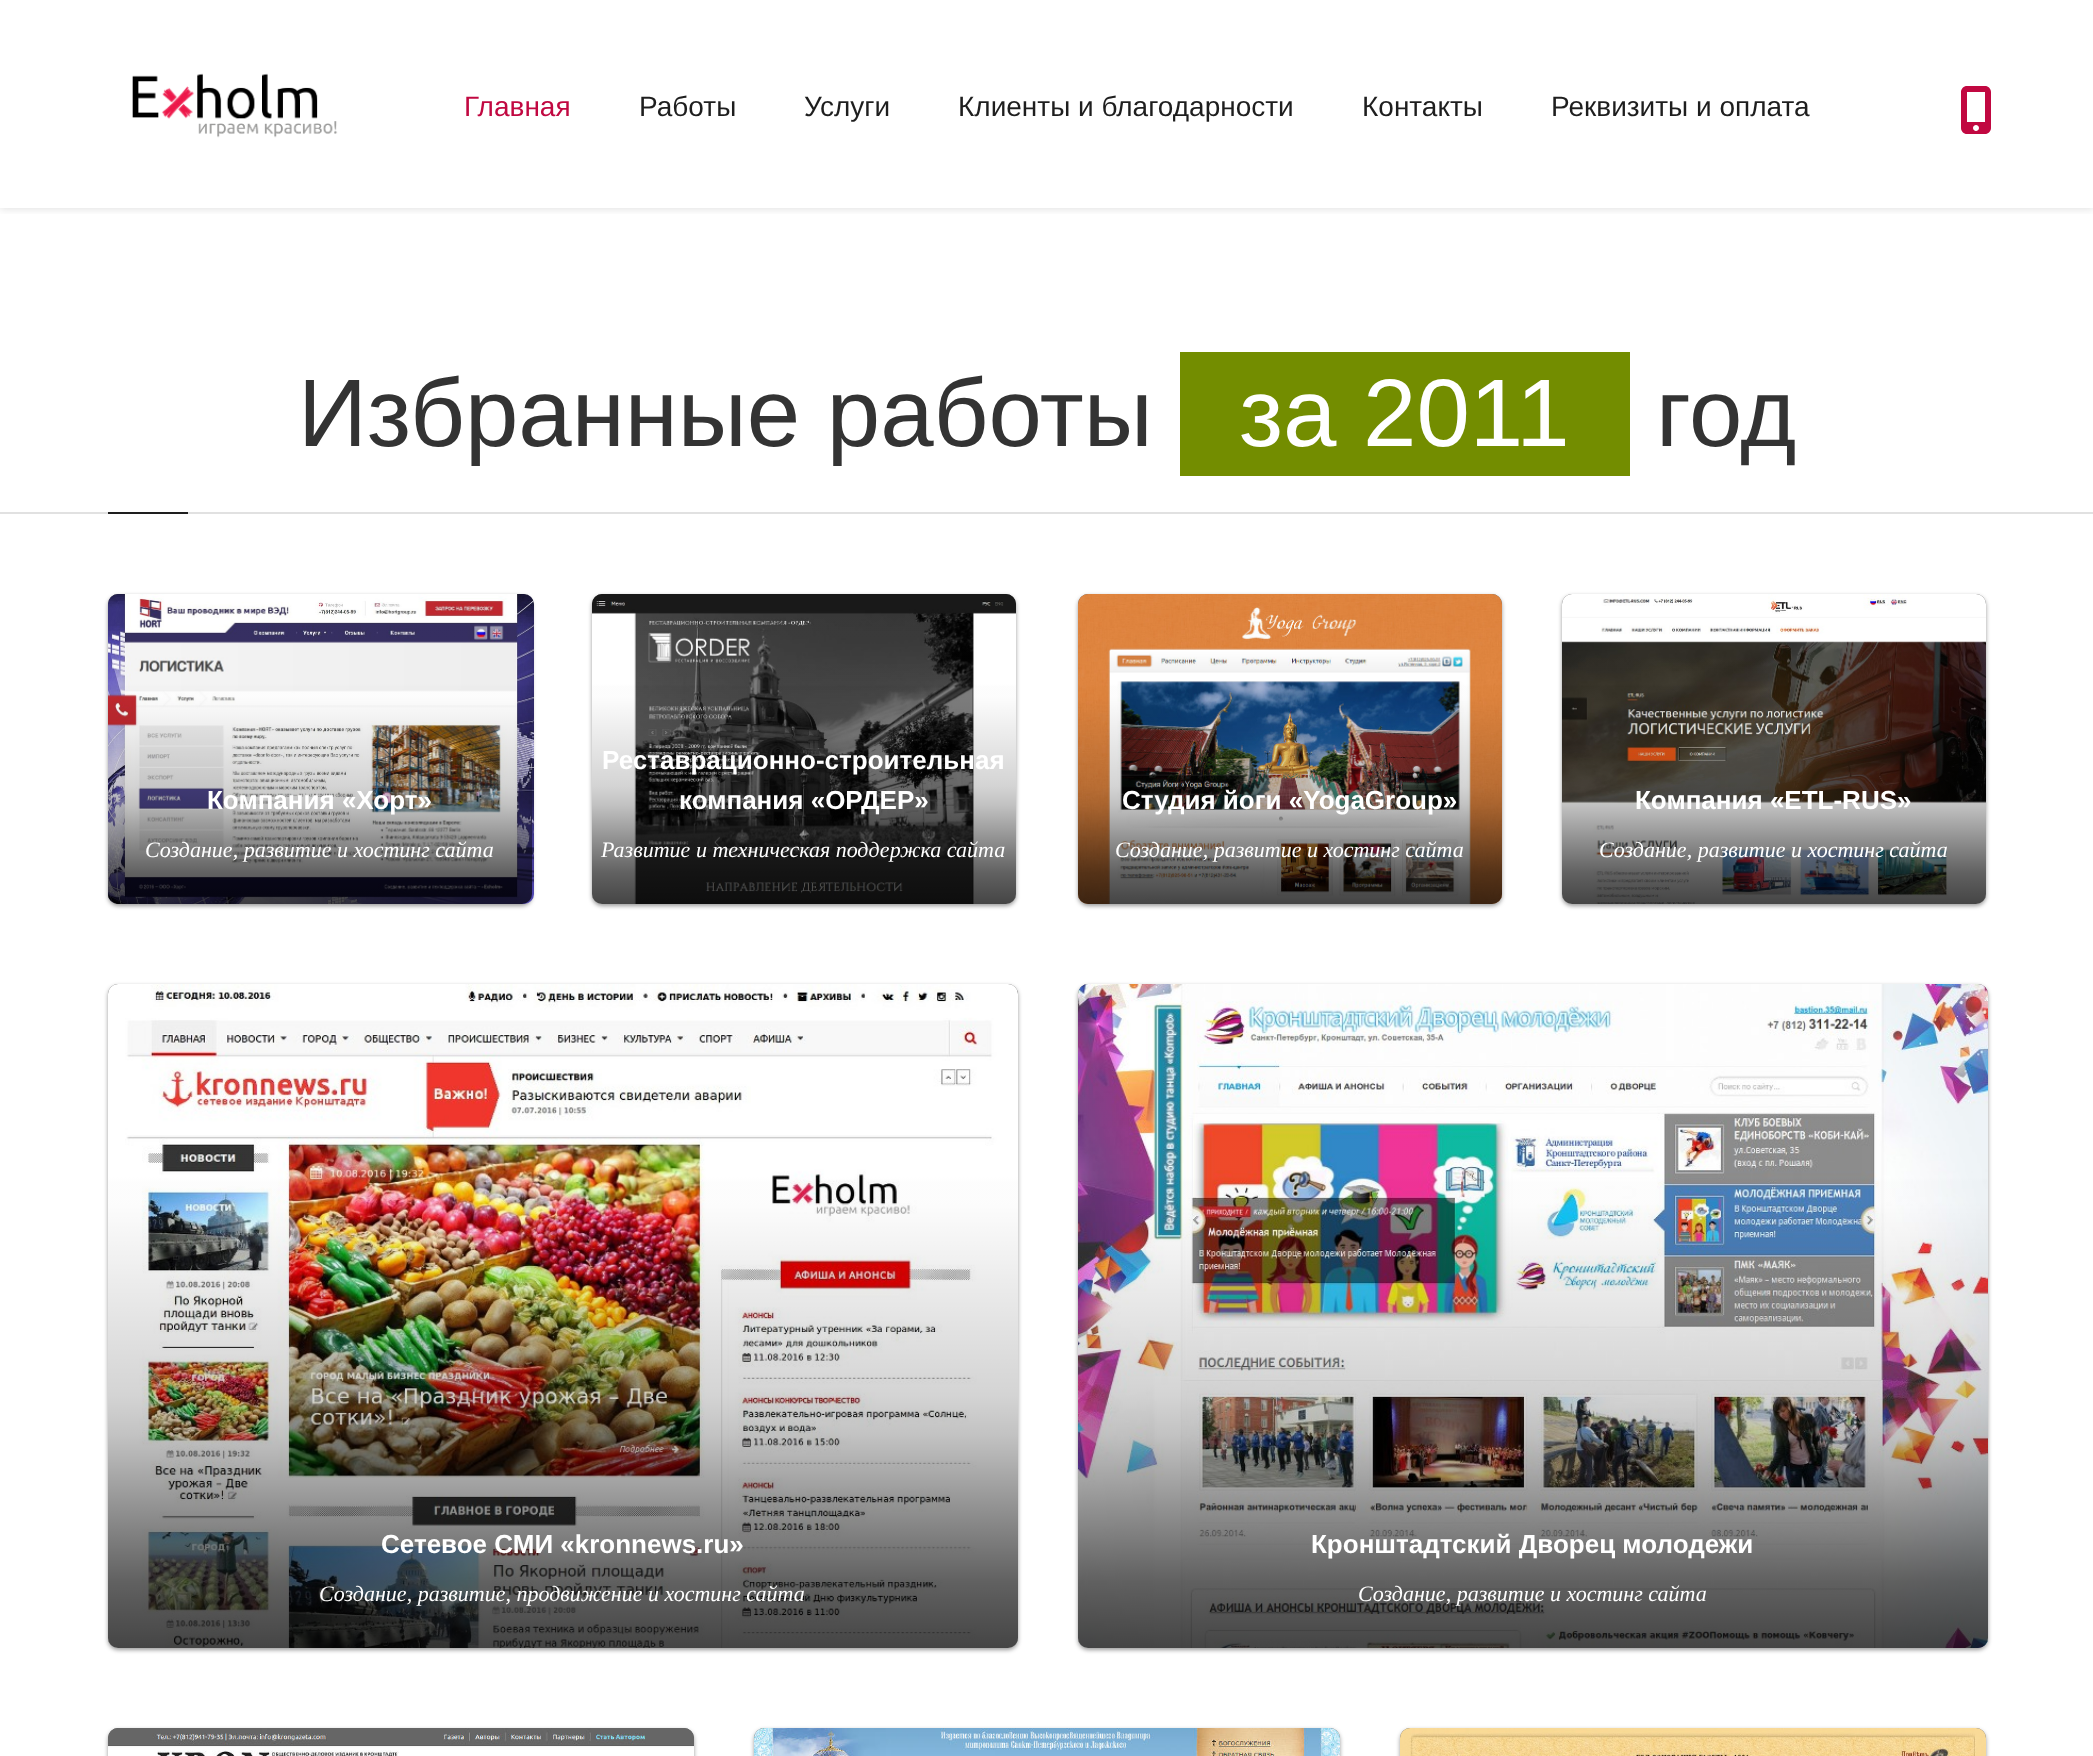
<svg xmlns="http://www.w3.org/2000/svg" width="2093" height="1756" viewBox="0 0 2093 1756">
  <style>
    .t1 { font: 28px Liberation Sans; fill: #c10841; }
    .t2 { font: 28px Liberation Sans; fill: #1e1e1e; }
    .t3 { font: 96px Liberation Sans; fill: #333; }
    .t4 { font: 96px Liberation Sans; fill: #fff; }
    .t5 { font: bold 26px Liberation Sans; fill: #fff; }
    .t6 { font: italic 22px Liberation Serif; fill: #fff; }
  </style>
  <defs>
    <clipPath id="clip1"><rect x="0" y="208" width="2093" height="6"/></clipPath>
    <linearGradient id="g1" gradientUnits="userSpaceOnUse" x1="320" y1="594" x2="320" y2="904"><stop offset="0" stop-color="#fff" stop-opacity="0"/><stop offset="0.29" stop-color="#fff" stop-opacity="0.01"/><stop offset="0.3" stop-color="#000" stop-opacity="0.01"/><stop offset="0.33" stop-color="#000" stop-opacity="0.01"/><stop offset="0.62" stop-color="#000" stop-opacity="0.17"/><stop offset="0.68" stop-color="#000" stop-opacity="0.24"/><stop offset="0.9" stop-color="#000" stop-opacity="0.62"/><stop offset="1" stop-color="#000" stop-opacity="0.73"/></linearGradient>
    <linearGradient id="g2" gradientUnits="userSpaceOnUse" x1="804" y1="594" x2="804" y2="904"><stop offset="0" stop-color="#fff" stop-opacity="0"/><stop offset="0.29" stop-color="#fff" stop-opacity="0.01"/><stop offset="0.3" stop-color="#000" stop-opacity="0.01"/><stop offset="0.33" stop-color="#000" stop-opacity="0.01"/><stop offset="0.62" stop-color="#000" stop-opacity="0.17"/><stop offset="0.68" stop-color="#000" stop-opacity="0.24"/><stop offset="0.9" stop-color="#000" stop-opacity="0.62"/><stop offset="1" stop-color="#000" stop-opacity="0.73"/></linearGradient>
    <linearGradient id="g3" gradientUnits="userSpaceOnUse" x1="1290" y1="594" x2="1290" y2="904"><stop offset="0" stop-color="#fff" stop-opacity="0"/><stop offset="0.29" stop-color="#fff" stop-opacity="0.01"/><stop offset="0.3" stop-color="#000" stop-opacity="0.01"/><stop offset="0.33" stop-color="#000" stop-opacity="0.01"/><stop offset="0.62" stop-color="#000" stop-opacity="0.17"/><stop offset="0.68" stop-color="#000" stop-opacity="0.24"/><stop offset="0.9" stop-color="#000" stop-opacity="0.62"/><stop offset="1" stop-color="#000" stop-opacity="0.73"/></linearGradient>
    <linearGradient id="g4" gradientUnits="userSpaceOnUse" x1="1774" y1="594" x2="1774" y2="904"><stop offset="0" stop-color="#fff" stop-opacity="0"/><stop offset="0.29" stop-color="#fff" stop-opacity="0.01"/><stop offset="0.3" stop-color="#000" stop-opacity="0.01"/><stop offset="0.33" stop-color="#000" stop-opacity="0.01"/><stop offset="0.62" stop-color="#000" stop-opacity="0.17"/><stop offset="0.68" stop-color="#000" stop-opacity="0.24"/><stop offset="0.9" stop-color="#000" stop-opacity="0.62"/><stop offset="1" stop-color="#000" stop-opacity="0.73"/></linearGradient>
    <linearGradient id="g5" gradientUnits="userSpaceOnUse" x1="563" y1="984" x2="563" y2="1648"><stop offset="0" stop-color="#fff" stop-opacity="0"/><stop offset="0.29" stop-color="#fff" stop-opacity="0.01"/><stop offset="0.3" stop-color="#000" stop-opacity="0.01"/><stop offset="0.33" stop-color="#000" stop-opacity="0.01"/><stop offset="0.62" stop-color="#000" stop-opacity="0.17"/><stop offset="0.68" stop-color="#000" stop-opacity="0.24"/><stop offset="0.9" stop-color="#000" stop-opacity="0.62"/><stop offset="1" stop-color="#000" stop-opacity="0.73"/></linearGradient>
    <linearGradient id="g6" gradientUnits="userSpaceOnUse" x1="1533" y1="984" x2="1533" y2="1648"><stop offset="0" stop-color="#fff" stop-opacity="0"/><stop offset="0.29" stop-color="#fff" stop-opacity="0.01"/><stop offset="0.3" stop-color="#000" stop-opacity="0.01"/><stop offset="0.33" stop-color="#000" stop-opacity="0.01"/><stop offset="0.62" stop-color="#000" stop-opacity="0.17"/><stop offset="0.68" stop-color="#000" stop-opacity="0.24"/><stop offset="0.9" stop-color="#000" stop-opacity="0.62"/><stop offset="1" stop-color="#000" stop-opacity="0.73"/></linearGradient>
  </defs>
  <rect width="100%" height="100%" fill="#fff"/>
  <g clip-path="url(#clip1)">
    <rect x="0" y="0" width="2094" height="208" fill="#00000026" filter="blur(5px)"/>
  </g>
  <image x="132" y="73" width="206" height="65" href="images/1.png"/>
  <text x="464" y="116" class="t1">Главная</text>
  <text x="639" y="116" class="t2">Работы</text>
  <text x="804" y="116" class="t2">Услуги</text>
  <text x="958" y="116" class="t2">Клиенты и благодарности</text>
  <text x="1362" y="116" class="t2">Контакты</text>
  <text x="1551" y="116" class="t2">Реквизиты и оплата</text>
  <image x="1961" y="86" width="30" height="48" href="images/2.png"/>
  <rect x="0" y="512" width="2093" height="2" fill="#e1e1e1"/>
  <text x="298" y="446" class="t3">Избранные работы</text>
  <rect x="1180" y="352" width="450" height="124" fill="#738d00"/>
  <text x="1239" y="446" class="t4">за 2011</text>
  <text x="1656" y="446" class="t3">год</text>
  <rect x="108" y="512" width="80" height="2" fill="#1e1e1e"/>
  <rect x="108" y="596" width="424" height="310" rx="10" fill="#00000066" filter="blur(2px)"/>
  <rect x="108" y="594" width="424" height="310" rx="10" fill="#555"/>
  <image x="108" y="594" width="426" height="310" href="images/3.png"/>
  <rect x="108" y="594" width="424" height="310" rx="10" fill="url(#g1)"/>
  <text x="207" y="809" class="t5">Компания «Хорт»</text>
  <text x="145" y="857" class="t6">Создание, развитие и хостинг сайта</text>
  <rect x="592" y="596" width="424" height="310" rx="10" fill="#00000066" filter="blur(2px)"/>
  <rect x="592" y="594" width="424" height="310" rx="10" fill="#555"/>
  <image x="592" y="594" width="424" height="310" href="images/4.png"/>
  <rect x="592" y="594" width="424" height="310" rx="10" fill="url(#g2)"/>
  <text x="602" y="769" class="t5">Реставрационно-строительная</text>
  <text x="679" y="809" class="t5">компания «ОРДЕР»</text>
  <text x="601" y="857" class="t6">Развитие и техническая поддержка сайта</text>
  <rect x="1078" y="596" width="424" height="310" rx="10" fill="#00000066" filter="blur(2px)"/>
  <rect x="1078" y="594" width="424" height="310" rx="10" fill="#555"/>
  <image x="1078" y="594" width="424" height="310" href="images/5.png"/>
  <rect x="1078" y="594" width="424" height="310" rx="10" fill="url(#g3)"/>
  <text x="1122" y="809" class="t5">Студия йоги «YogaGroup»</text>
  <text x="1115" y="857" class="t6">Создание, развитие и хостинг сайта</text>
  <rect x="1562" y="596" width="424" height="310" rx="10" fill="#00000066" filter="blur(2px)"/>
  <rect x="1562" y="594" width="424" height="310" rx="10" fill="#555"/>
  <image x="1562" y="594" width="424" height="310" href="images/6.png"/>
  <rect x="1562" y="594" width="424" height="310" rx="10" fill="url(#g4)"/>
  <text x="1635" y="809" class="t5">Компания «ETL-RUS»</text>
  <text x="1599" y="857" class="t6">Создание, развитие и хостинг сайта</text>
  <rect x="108" y="986" width="910" height="664" rx="10" fill="#00000066" filter="blur(2px)"/>
  <rect x="108" y="984" width="910" height="664" rx="10" fill="#555"/>
  <image x="108" y="984" width="910" height="664" href="images/7.png"/>
  <rect x="108" y="984" width="910" height="664" rx="10" fill="url(#g5)"/>
  <text x="381" y="1553" class="t5">Сетевое СМИ «kronnews.ru»</text>
  <text x="319" y="1601" class="t6">Создание, развитие, продвижение и хостинг сайта</text>
  <rect x="1078" y="986" width="910" height="664" rx="10" fill="#00000066" filter="blur(2px)"/>
  <rect x="1078" y="984" width="910" height="664" rx="10" fill="#555"/>
  <image x="1078" y="984" width="910" height="664" href="images/8.png"/>
  <rect x="1078" y="984" width="910" height="664" rx="10" fill="url(#g6)"/>
  <text x="1311" y="1553" class="t5">Кронштадтский Дворец молодежи</text>
  <text x="1358" y="1601" class="t6">Создание, развитие и хостинг сайта</text>
  <rect x="108" y="1730" width="586" height="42" rx="10" fill="#00000066" filter="blur(2px)"/>
  <rect x="108" y="1728" width="586" height="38" rx="10" fill="#555"/>
  <image x="108" y="1728" width="586" height="28" href="images/9.png"/>
  <rect x="754" y="1730" width="586" height="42" rx="10" fill="#00000066" filter="blur(2px)"/>
  <rect x="754" y="1728" width="586" height="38" rx="10" fill="#555"/>
  <image x="754" y="1728" width="586" height="28" href="images/10.png"/>
  <rect x="1400" y="1730" width="586" height="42" rx="10" fill="#00000066" filter="blur(2px)"/>
  <rect x="1400" y="1728" width="586" height="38" rx="10" fill="#555"/>
  <image x="1400" y="1728" width="586" height="28" href="images/11.png"/>
</svg>
